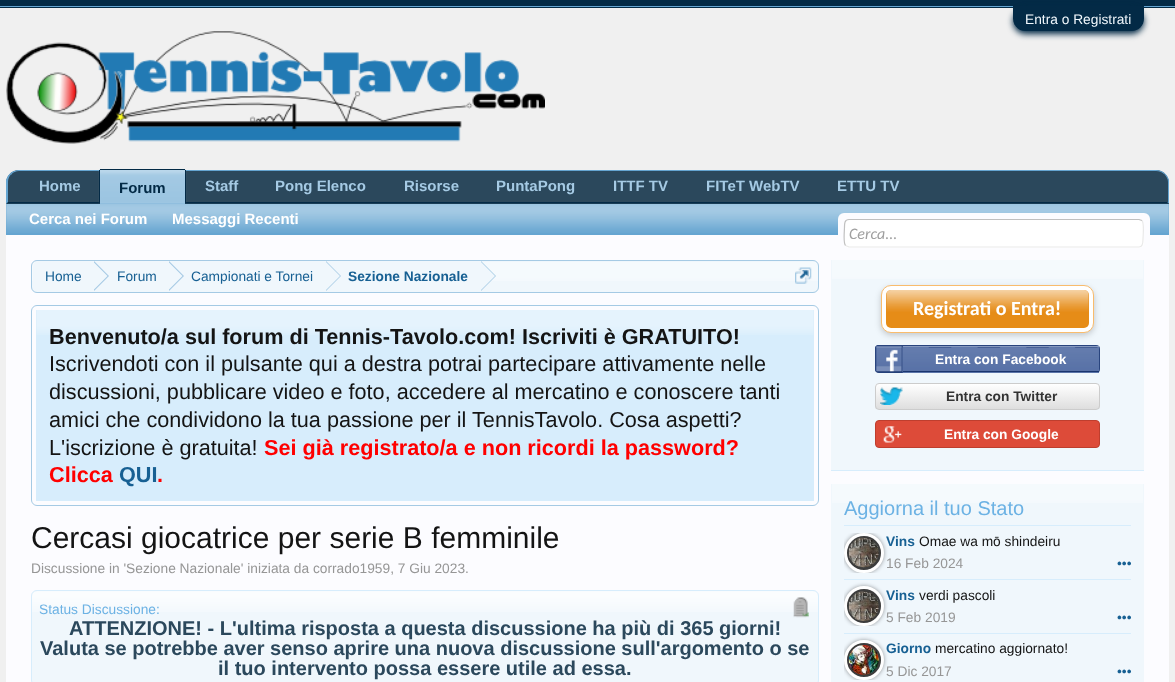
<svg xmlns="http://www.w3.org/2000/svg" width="1175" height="682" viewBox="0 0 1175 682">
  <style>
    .t1 { font: 13.75px Liberation Sans; fill: #f0f7fc; }
    .t2 { font: bold 15px Liberation Sans; fill: #a5cae4; }
    .t3 { font: bold 15px Liberation Sans; fill: #032a46; }
    .t4 { font: bold 15px Liberation Sans; fill: #fff; }
    .t5 { font: italic 16px Carlito; fill: #a0a0a0; }
    .t6 { font: 13.75px Liberation Sans; fill: #176093; }
    .t7 { font: bold 13.75px Liberation Sans; fill: #176093; }
    .t8 { font: bold 21.65px Liberation Sans; fill: #141414; }
    .t9 { font: 21.65px Liberation Sans; fill: #141414; }
    .t10 { font: bold 21.65px Liberation Sans; fill: #f00; }
    .t11 { font: bold 21.65px Liberation Sans; fill: #176093; }
    .t12 { font: 30px Liberation Sans; fill: #141414; }
    .t13 { font: 13.75px Liberation Sans; fill: #969696; }
    .t14 { font: 13.75px Liberation Sans; fill: #6cb2e4; }
    .t15 { font: bold 20px Liberation Sans; fill: #2b485c; }
    .t16 { font: bold 20px Carlito; fill: #fff; }
    .t17 { font: bold 13.75px Liberation Sans; fill: #fff; }
    .t18 { font: bold 13.75px Liberation Sans; fill: #333; }
    .t19 { font: 20px Liberation Sans; fill: #6cb2e4; }
    .t20 { font: 13.75px Liberation Sans; fill: #141414; }
  </style>
  <defs>
    <clipPath id="clip1"><rect x="33" y="261" width="785" height="30" rx="5"/></clipPath>
    <clipPath id="clip2"><rect x="875" y="383" width="225" height="27" rx="4"/></clipPath>
    <linearGradient id="g1" gradientUnits="userSpaceOnUse" x1="988" y1="384" x2="988" y2="409"><stop offset="0" stop-color="#fff"/><stop offset="1" stop-color="#dedede"/></linearGradient>
    <clipPath id="clip3"><rect x="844" y="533" width="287" height="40"/></clipPath>
    <clipPath id="clip4"><rect x="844" y="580" width="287" height="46"/></clipPath>
    <clipPath id="clip5"><rect x="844" y="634" width="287" height="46"/></clipPath>
  </defs>
  <rect width="100%" height="100%" fill="#f0f0f0"/>
  <rect x="0" y="0" width="1175" height="8" fill="#032a46"/>
  <rect x="0" y="6" width="1175" height="1" fill="#65a5d1"/>
  <rect x="1013" y="9" width="131" height="25" rx="12.5" fill="#032a46" filter="blur(3px)"/>
  <path d="M1013 6H1144V18.5C1144 25.5 1138.5 31 1131.5 31H1025.5C1018.5 31 1013 25.5 1013 18.5Z" fill="#032a46"/>
  <text x="1025" y="24" class="t1">Entra o Registrati</text>
  <image x="6" y="31" width="539" height="113" href="images/1.png"/>
  <path d="M19 170H1156C1163 170 1169 176 1169 183V204H6V183C6 176 12 170 19 170Z" fill="#2b485c"/>
  <path d="M19 170C16 170 12 171 10 174L11 175C13 172 16 171 19 171H1156C1159 171 1162 172 1164 174H1165C1163 171 1159 170 1156 170Z" fill="#65a5d1"/>
  <path d="M1165 173.5C1167 175.5 1168 177.5 1169 180V204L1167 202H1168V182C1168 179 1166.5 176.5 1164.5 174.5Z" fill="#65a5d1"/>
  <path d="M1169 204L1167 202H8L6 204Z" fill="#032a46"/>
  <path d="M6 204V180C7 177.5 8 175.5 10 173.5L11 174.5C9 176.5 8 179 8 182V202Z" fill="#65a5d1"/>
  <text x="39" y="191" class="t2">Home</text>
  <text x="205" y="191" class="t2">Staff</text>
  <text x="275" y="191" class="t2">Pong Elenco</text>
  <text x="404" y="191" class="t2">Risorse</text>
  <text x="496" y="191" class="t2">PuntaPong</text>
  <text x="613" y="191" class="t2">ITTF TV</text>
  <text x="706" y="191" class="t2">FITeT WebTV</text>
  <text x="837" y="191" class="t2">ETTU TV</text>
  <path d="M101.5 169H183.5C185 169 186 170 186 171.5V204H99V171.5C99 170 100 169 101.5 169Z" fill="#65a5d1"/>
  <image x="98" y="170" width="89" height="34" href="images/2.png"/>
  <rect x="100" y="169" width="85" height="1" fill="#032a46"/>
  <rect x="185" y="170" width="1" height="34" fill="#032a46"/>
  <rect x="99" y="170" width="1" height="34" fill="#032a46"/>
  <text x="119" y="193" class="t3">Forum</text>
  <rect x="6" y="204" width="1163" height="31" fill="#65a5d1"/>
  <image x="6" y="203" width="1163" height="30" href="images/3.png"/>
  <text x="29" y="224" class="t4">Cerca nei Forum</text>
  <text x="172" y="224" class="t4">Messaggi Recenti</text>
  <rect x="6" y="235" width="1163" height="447" fill="#fcfcff"/>
  <rect x="838" y="213" width="312" height="35" rx="6" fill="#fcfcff"/>
  <rect x="844" y="219" width="300" height="29" rx="5" fill="#fff"/>
  <path d="M1142 220.5C1144.5 223.5 1143 235.5 1143 239.5C1143 242.5 1143 247 1139 247H849L845.5 245.5" fill="none" stroke="#e9e9e9" stroke-width="1.2"/>
  <path d="M845.5 245.5C843 243 844.5 230.5 844.5 227C844.5 223.5 844.5 219.5 849 219.5H1139L1142 220.5" fill="none" stroke="#c0c0c0" stroke-width="1.2"/>
  <text x="849" y="239" class="t5">Cerca...</text>
  <rect x="31" y="260" width="788" height="33" rx="6" fill="#f0f7fc"/>
  <image x="32" y="262" width="786" height="19" href="images/4.png"/>
  <rect x="31.5" y="260.5" width="787" height="32" rx="5.5" fill="none" stroke="#a5cae4"/>
  <g clip-path="url(#clip1)">
    <path d="M39 261H94V293H39C35.5 293 33 290.5 33 287V267C33 263.5 35.5 261 39 261Z" fill="#f0f7fc"/>
  </g>
  <text x="45" y="281" class="t6">Home</text>
  <rect x="94" y="262" width="387" height="19" fill="#f0f7fc"/>
  <path d="M94 291V261L109 276Z" fill="#a5cae4"/>
  <path d="M92.5 291V261L107.5 276Z" fill="#f0f7fc"/>
  <text x="117" y="281" class="t6">Forum</text>
  <path d="M169 291V261L184 276Z" fill="#a5cae4"/>
  <path d="M167.5 291V261L182.5 276Z" fill="#f0f7fc"/>
  <text x="191" y="281" class="t6">Campionati e Tornei</text>
  <path d="M326 291V261L341 276Z" fill="#a5cae4"/>
  <path d="M325 291V261L340 276Z" fill="#f0f7fc"/>
  <text x="348" y="281" class="t7">Sezione Nazionale</text>
  <path d="M481 291V261L496 276Z" fill="#a5cae4"/>
  <path d="M480 291V261L495 276Z" fill="#f0f7fc"/>
  <image x="795" y="267" width="17" height="17" href="images/5.png"/>
  <rect x="31.5" y="305.5" width="787" height="200" rx="5.5" fill="none" stroke="#a5cae4"/>
  <rect x="36" y="310" width="778" height="191" fill="#d7edfc"/>
  <image x="36" y="310" width="778" height="25" href="images/6.png"/>
  <text x="49" y="344" class="t8">Benvenuto/a sul forum di Tennis-Tavolo.com! Iscriviti è GRATUITO!</text>
  <text x="49" y="371" class="t9">Iscrivendoti con il pulsante qui a destra potrai partecipare attivamente nelle</text>
  <text x="49" y="399" class="t9">discussioni, pubblicare video e foto, accedere al mercatino e conoscere tanti</text>
  <text x="49" y="427" class="t9">amici che condividono la tua passione per il TennisTavolo. Cosa aspetti?</text>
  <text x="49" y="455" class="t9">L'iscrizione è gratuita!</text>
  <text x="264" y="455" class="t10">Sei già registrato/a e non ricordi la password?</text>
  <text x="49" y="482" class="t10">Clicca</text>
  <text x="119" y="482" class="t11">QUI</text>
  <text x="157" y="482" class="t10">.</text>
  <text x="31" y="548" class="t12">Cercasi giocatrice per serie B femminile</text>
  <text x="31" y="573" class="t13">Discussione in 'Sezione Nazionale' iniziata da corrado1959, 7 Giu 2023.</text>
  <rect x="31" y="590" width="788" height="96" rx="6" fill="#f0f7fc"/>
  <image x="31" y="591" width="788" height="21" href="images/7.png"/>
  <rect x="31.5" y="590.5" width="787" height="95" rx="5.5" fill="none" stroke="#d7edfc"/>
  <text x="39" y="614" class="t14">Status Discussione:</text>
  <image x="793" y="597" width="16" height="21" href="images/8.png"/>
  <text x="69" y="635" class="t15">ATTENZIONE! - L'ultima risposta a questa discussione ha più di 365 giorni!</text>
  <text x="40" y="655" class="t15">Valuta se potrebbe aver senso aprire una nuova discussione sull'argomento o se</text>
  <text x="218" y="675" class="t15">il tuo intervento possa essere utile ad essa.</text>
  <rect x="831" y="260" width="313" height="210" fill="#f0f7fc"/>
  <image x="832" y="260" width="311" height="19" href="images/9.png"/>
  <rect x="831" y="470" width="313" height="1" fill="#d7edfc"/>
  <rect x="881" y="288" width="213" height="47" rx="10" fill="#00000033" filter="blur(3px)"/>
  <rect x="881.5" y="285.5" width="212" height="47" rx="9.5" fill="#fff" stroke="#f9bc6d"/>
  <rect x="886" y="290" width="203" height="38" rx="5" fill="#e68c17"/>
  <image x="886" y="290" width="203" height="22" href="images/10.png"/>
  <text x="913" y="315" class="t16">Registrati o Entra!</text>
  <rect x="875" y="345" width="225" height="28" rx="4" fill="#29447e"/>
  <image x="875" y="345" width="28" height="28" href="images/11.png"/>
  <rect x="903" y="347" width="196" height="26" fill="#5f78ab"/>
  <image x="902" y="346" width="197" height="27" href="images/12.png"/>
  <rect x="903" y="346" width="196" height="1" fill="#879ac0"/>
  <rect x="903" y="371" width="196" height="1" fill="#1a356e"/>
  <text x="935" y="364" class="t17">Entra con Facebook</text>
  <g clip-path="url(#clip2)">
    <rect x="875" y="384" width="225" height="25" fill="url(#g1)"/>
  </g>
  <rect x="875.5" y="383.5" width="224" height="26" rx="3.5" fill="none" stroke="#ccc"/>
  <image x="880" y="387" width="23" height="18" href="images/13.png"/>
  <text x="946" y="401" class="t18">Entra con Twitter</text>
  <rect x="875.5" y="420.5" width="224" height="27" rx="3.5" fill="#dd4b39" stroke="#be3e2e"/>
  <image x="883" y="426" width="19" height="17" href="images/14.png"/>
  <text x="944" y="439" class="t17">Entra con Google</text>
  <rect x="831" y="484" width="313" height="198" fill="#f0f7fc"/>
  <image x="832" y="484" width="311" height="19" href="images/15.png"/>
  <rect x="844" y="525" width="287" height="1" fill="#d7edfc"/>
  <text x="844" y="515" class="t19">Aggiorna il tuo Stato</text>
  <g clip-path="url(#clip3)">
    <rect x="844" y="533" width="40" height="40" rx="20" fill="#00000066" filter="blur(2px)"/>
  </g>
  <circle cx="864" cy="553" r="18.5" fill="#3c3c3c" stroke="#fff" stroke-width="3"/>
  <image x="848" y="537" width="31" height="31" href="images/16.png"/>
  <text x="886" y="546" class="t7">Vins</text>
  <text x="919" y="546" class="t20">Omae wa mō shindeiru</text>
  <text x="886" y="568" class="t13">16 Feb 2024</text>
  <text x="1117" y="568" class="t6">•••</text>
  <rect x="844" y="579" width="287" height="1" fill="#d7edfc"/>
  <g clip-path="url(#clip4)">
    <rect x="844" y="586" width="40" height="40" rx="20" fill="#00000066" filter="blur(2px)"/>
  </g>
  <circle cx="864" cy="606" r="18.5" fill="#3c3c3c" stroke="#fff" stroke-width="3"/>
  <image x="848" y="591" width="31" height="31" href="images/17.png"/>
  <text x="886" y="600" class="t7">Vins</text>
  <text x="919" y="600" class="t20">verdi pascoli</text>
  <text x="886" y="622" class="t13">5 Feb 2019</text>
  <text x="1117" y="622" class="t6">•••</text>
  <rect x="844" y="633" width="287" height="1" fill="#d7edfc"/>
  <g clip-path="url(#clip5)">
    <rect x="844" y="640" width="40" height="40" rx="20" fill="#00000066" filter="blur(2px)"/>
  </g>
  <circle cx="864" cy="660" r="18.5" fill="#3c3c3c" stroke="#fff" stroke-width="3"/>
  <image x="848" y="645" width="31" height="30" href="images/18.png"/>
  <text x="886" y="653" class="t7">Giorno</text>
  <text x="935" y="653" class="t20">mercatino aggiornato!</text>
  <text x="886" y="676" class="t13">5 Dic 2017</text>
  <text x="1117" y="676" class="t6">•••</text>
</svg>
